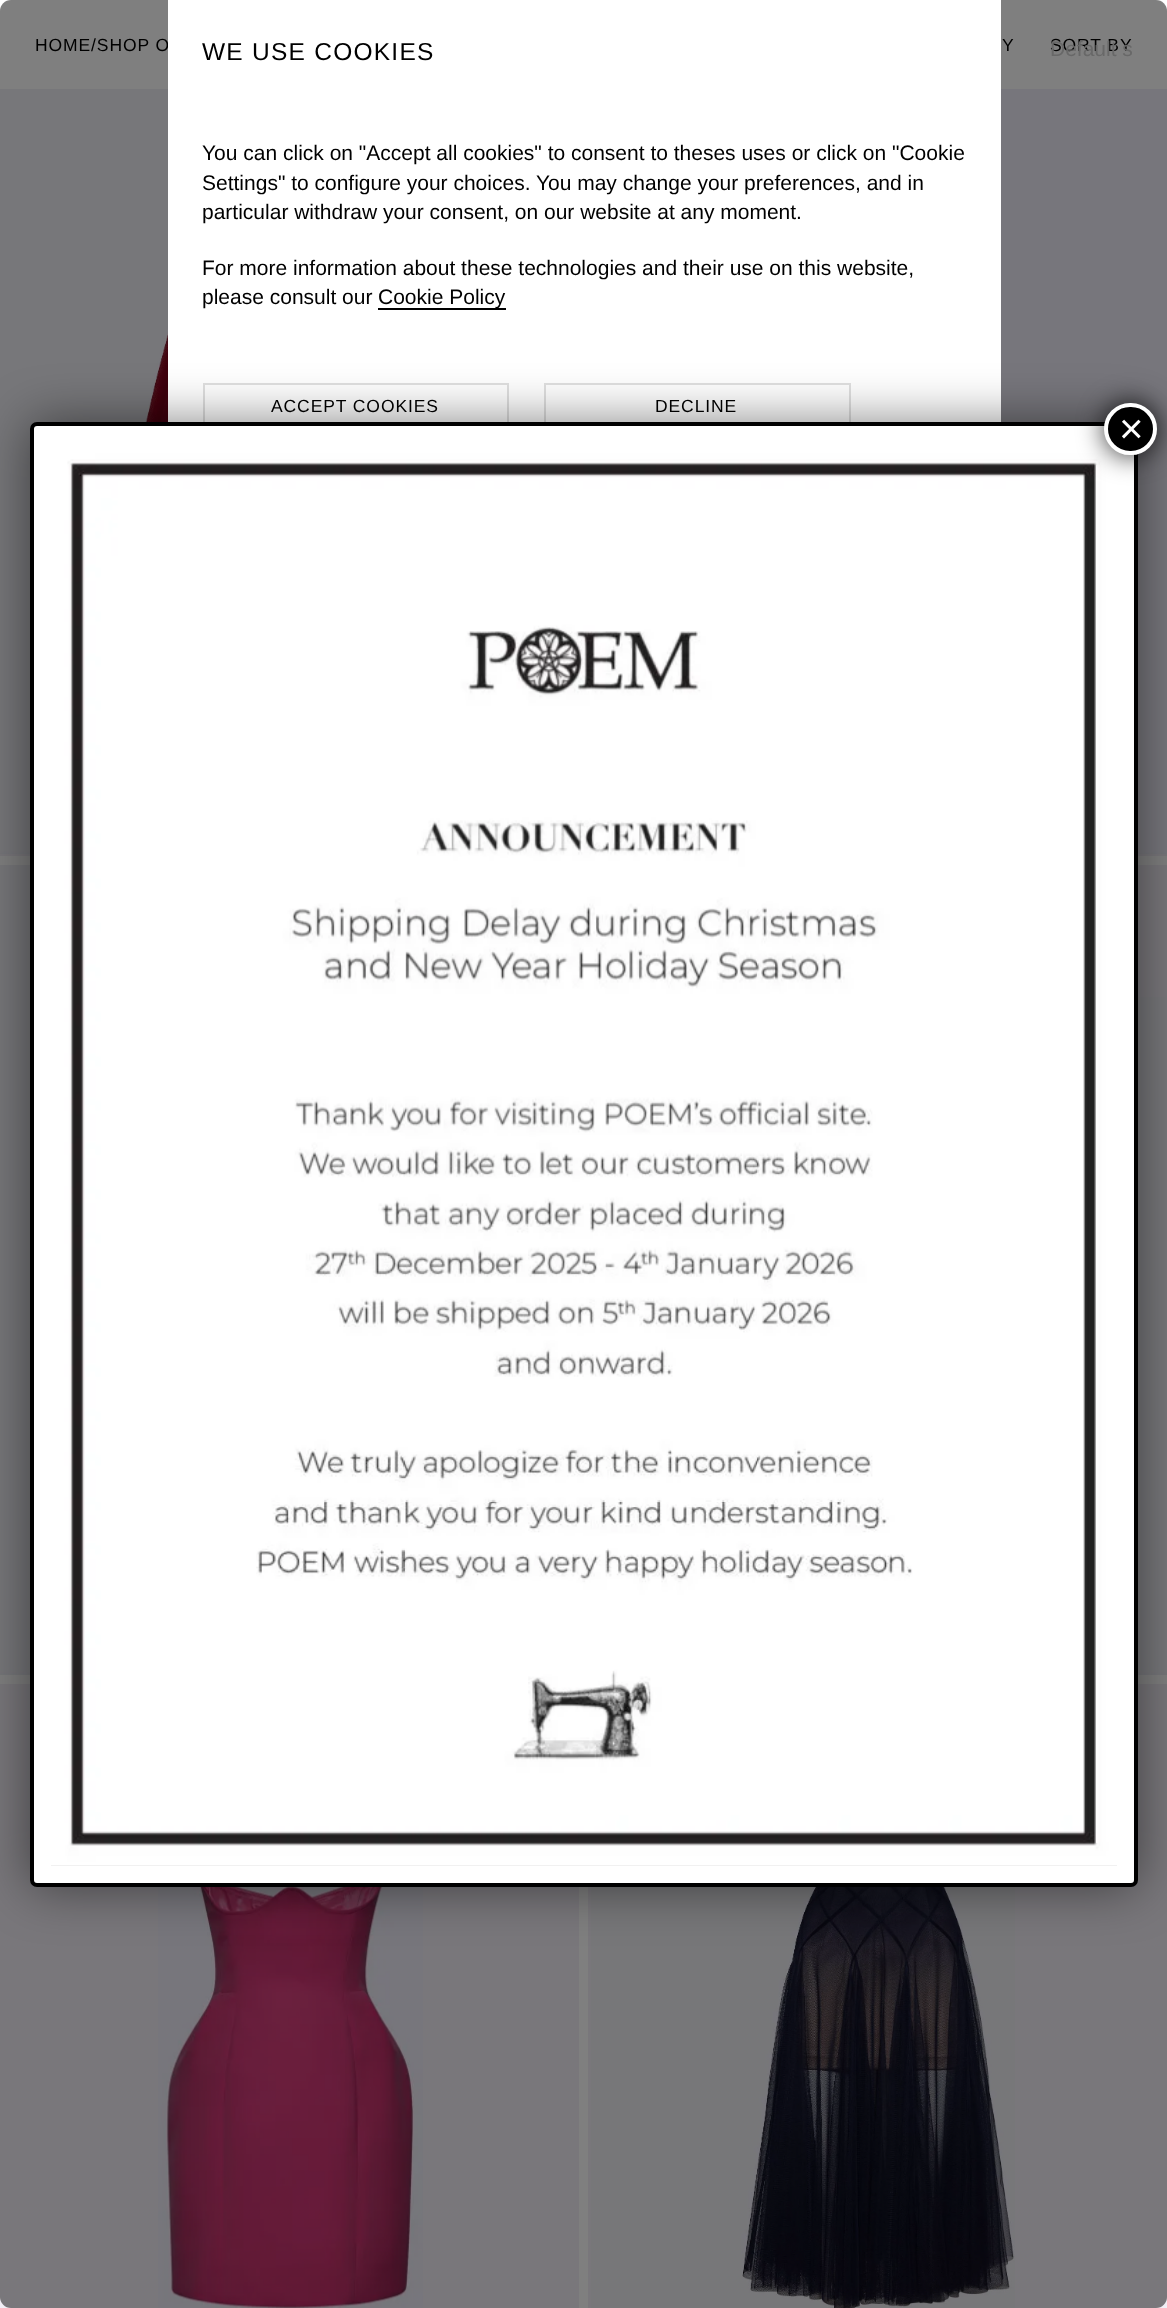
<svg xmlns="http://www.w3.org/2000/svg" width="1167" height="2308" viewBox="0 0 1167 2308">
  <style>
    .t1 { font: 17.5px Liberation Sans; letter-spacing: 0.9px; fill: #000; }
    .t2 { font: 21px Liberation Sans; fill: #d0d0d0; }
    .t3 { font: 24.5px Liberation Sans; letter-spacing: 1.25px; fill: #000; }
    .t4 { font: 21px Liberation Sans; fill: #000; }
    .t5 { font: 42px Liberation Sans; fill: #fff; }
  </style>
  <defs>
    <clipPath id="clip1"><rect x="378" y="285" width="128" height="25"/></clipPath>
  </defs>
  <rect width="100%" height="100%" fill="#fff"/>
  <text x="35" y="51" class="t1">HOME/SHOP O</text>
  <text x="1002" y="51" class="t1">Y</text>
  <text x="1050" y="51" class="t1">SORT BY</text>
  <text x="1050" y="56" class="t2">Default s</text>
  <rect x="0" y="854" width="30" height="2" fill="#f2eff6"/>
  <image x="0" y="89" width="168" height="765" href="images/1.png"/>
  <rect x="1138" y="89" width="29" height="767" fill="#f2eff6"/>
  <image x="1001" y="89" width="166" height="765" href="images/2.png"/>
  <image x="0" y="865" width="30" height="810" href="images/3.png"/>
  <rect x="1138" y="865" width="29" height="810" fill="#f2eff6"/>
  <image x="1138" y="997" width="29" height="678" href="images/4.png"/>
  <rect x="0" y="1684" width="579" height="624" fill="#f2eff6"/>
  <image x="158" y="1887" width="265" height="421" href="images/5.png"/>
  <rect x="588" y="1684" width="579" height="624" fill="#f2eff6"/>
  <image x="591" y="1887" width="424" height="421" href="images/6.png"/>
  <rect x="0" y="0" width="1167" height="2308" rx="11" fill="#00000080"/>
  <rect x="168" y="0" width="833" height="422" fill="#fff"/>
  <text x="202" y="60" class="t3">WE USE COOKIES</text>
  <text x="202" y="160" class="t4">You can click on "Accept all cookies" to consent to theses uses or click on "Cookie</text>
  <text x="202" y="190" class="t4">Settings" to configure your choices. You may change your preferences, and in</text>
  <text x="202" y="219" class="t4">particular withdraw your consent, on our website at any moment.</text>
  <text x="202" y="275" class="t4">For more information about these technologies and their use on this website,</text>
  <text x="202" y="304" class="t4">please consult our</text>
  <g clip-path="url(#clip1)">
    <path d="M205 112H679V483H205ZM378 280H506C507 280 508 281 508 282V306C508 307 507 308 506 308H378C377 308 376 307 376 306V282C376 281 377 280 378 280Z" fill="#000" fill-rule="evenodd"/>
  </g>
  <text x="378" y="304" class="t4">Cookie Policy</text>
  <rect x="204" y="384" width="304" height="46" fill="none" stroke="#e0e0e0" stroke-width="2"/>
  <text x="271" y="412" class="t1">ACCEPT COOKIES</text>
  <rect x="545" y="384" width="305" height="46" fill="none" stroke="#e0e0e0" stroke-width="2"/>
  <text x="655" y="412" class="t1">DECLINE</text>
  <rect x="30" y="422" width="1108" height="1465" rx="7" fill="#0202027d" filter="blur(26px)"/>
  <rect x="32" y="424" width="1104" height="1461" rx="5" fill="#fff" stroke="#000" stroke-width="4"/>
  <rect x="51" y="1865" width="1066" height="1" fill="#e6e6e6"/>
  <image x="51" y="443" width="1066" height="1423" href="images/7.png"/>
  <rect x="1103" y="401" width="56" height="56" rx="28" fill="#020202bf" filter="blur(13px)"/>
  <rect x="1106" y="405" width="49" height="48" rx="24" fill="#000" stroke="#fff" stroke-width="4"/>
  <text x="1119" y="443" class="t5">×</text>
</svg>
